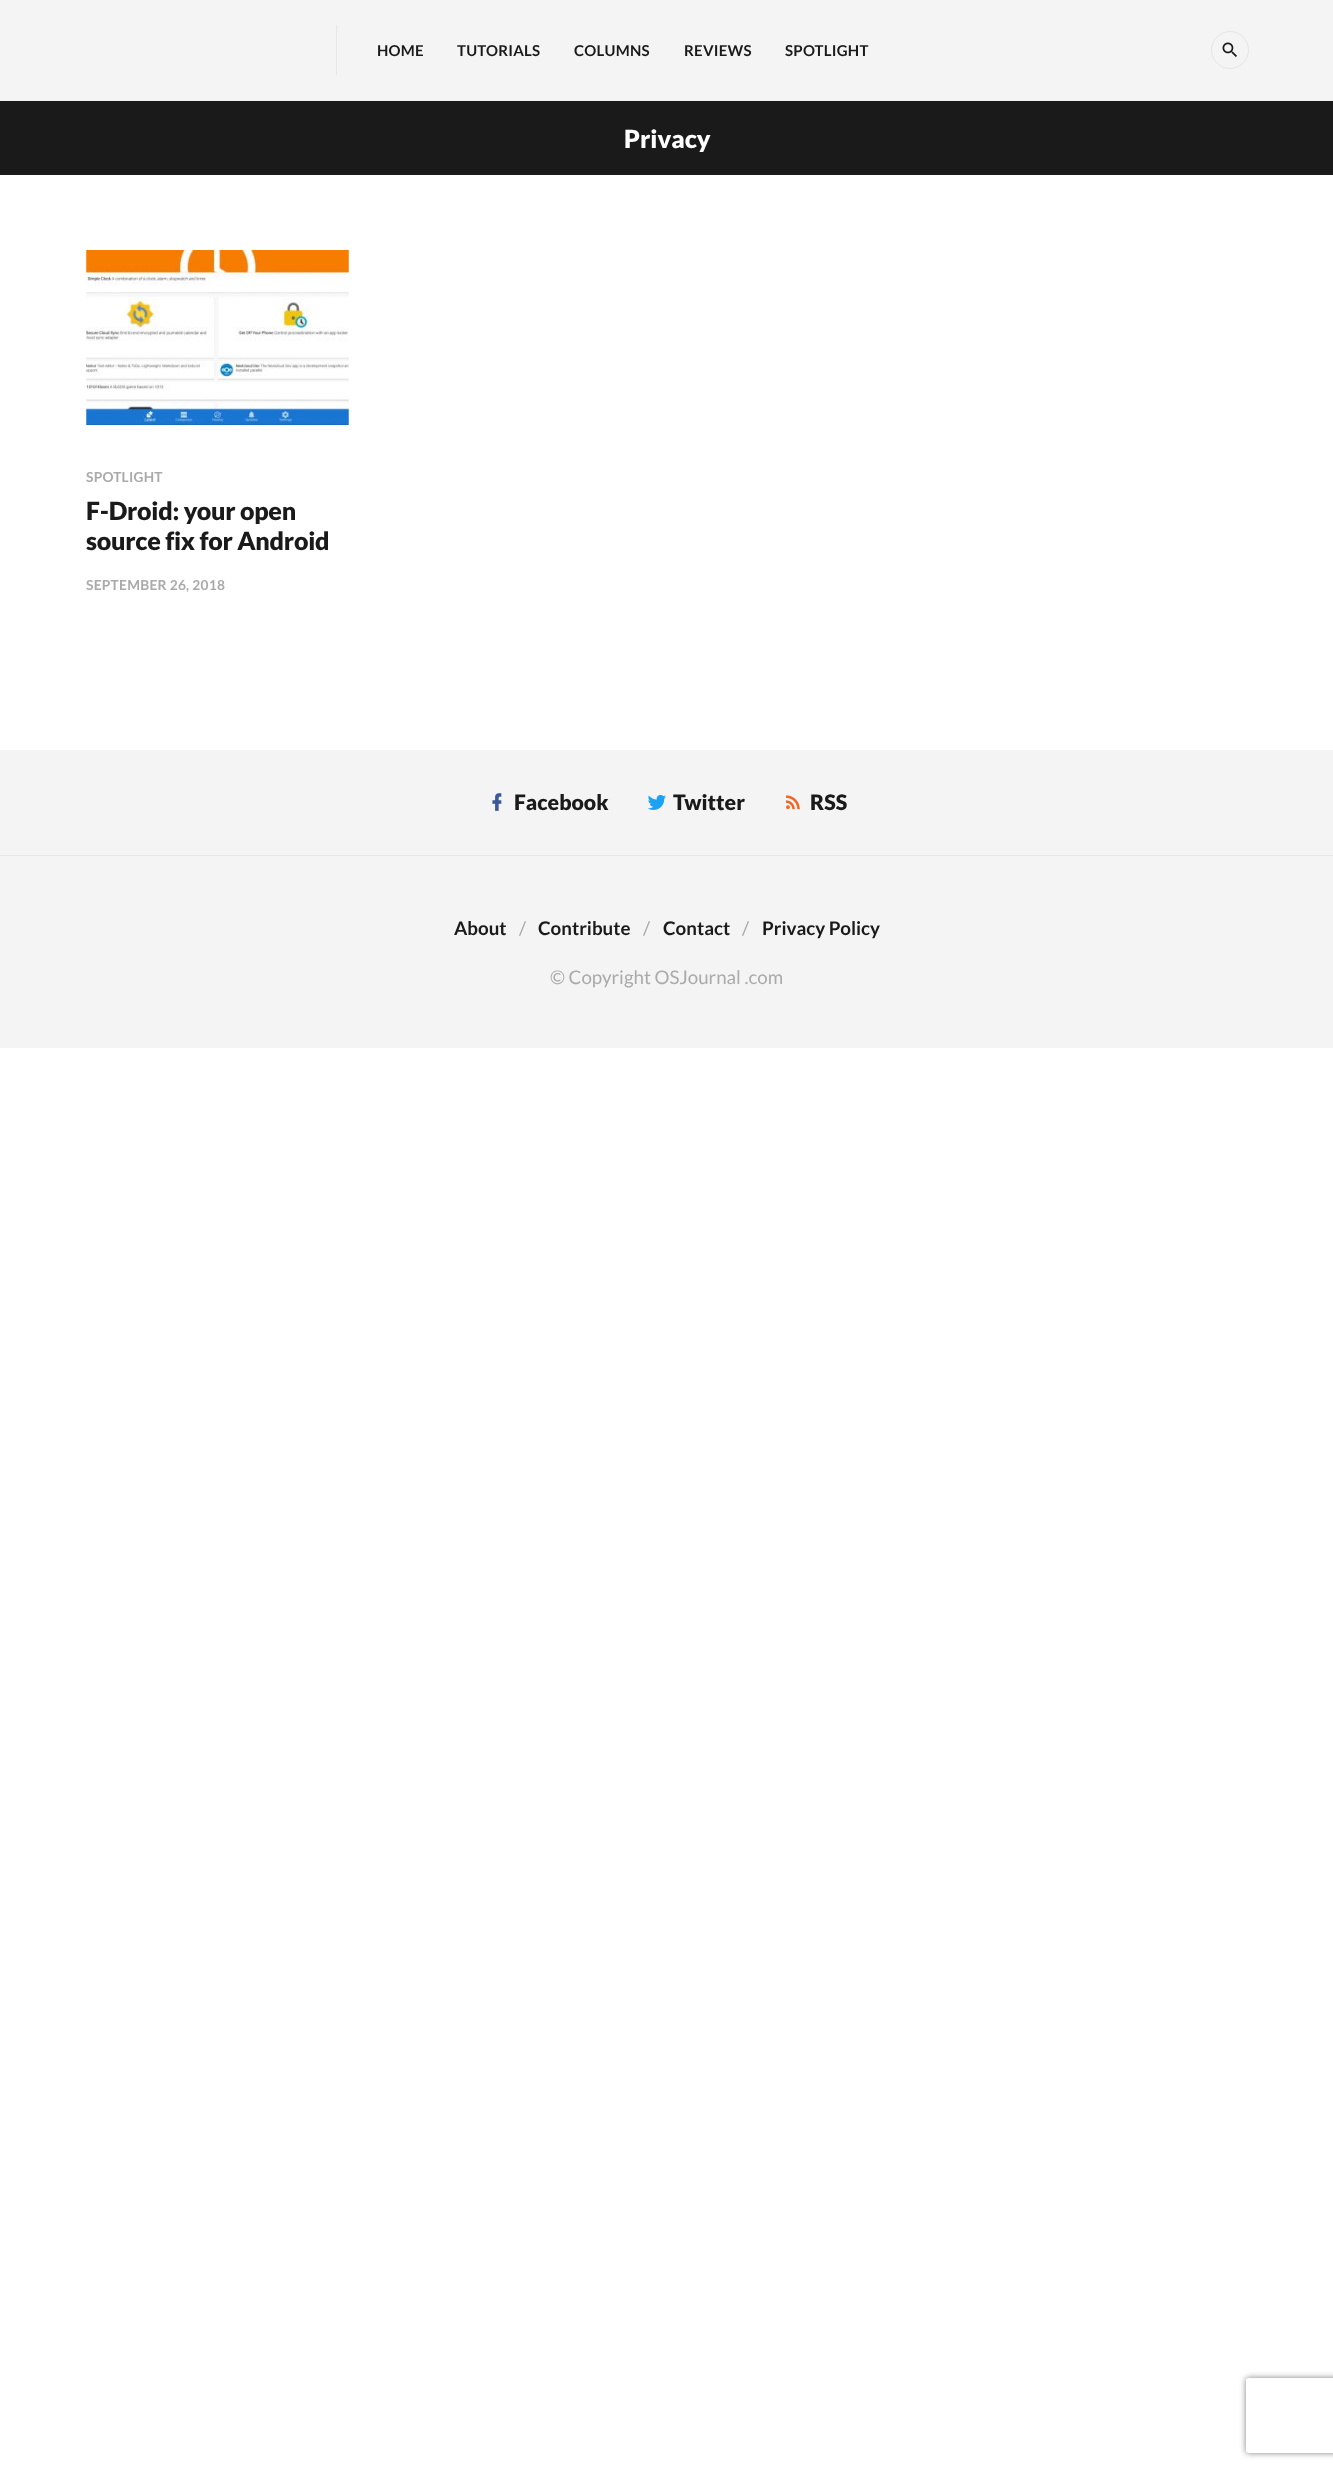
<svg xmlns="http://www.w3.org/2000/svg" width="1333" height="2469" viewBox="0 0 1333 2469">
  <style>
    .t1 { font: bold 15px Lato; letter-spacing: 0.25px; fill: #1a1a1a; }
    .t2 { font: 900 25px Lato; fill: #fff; }
    .t3 { font: bold 13.75px Lato; letter-spacing: 0.25px; fill: #aaa; }
    .t4 { font: 900 25px Lato; letter-spacing: -0.25px; fill: #1a1a1a; }
    .t5 { font: 900 21.25px Lato; fill: #1a1a1a; }
    .t6 { font: bold 18.75px Lato; fill: #1a1a1a; }
    .t7 { font: 18.75px Lato; fill: #aaa; }
  </style>
  <defs>
    <clipPath id="clip1"><path d="M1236 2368H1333V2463H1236ZM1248.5 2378H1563.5C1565 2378 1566 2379 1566 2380.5V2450.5C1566 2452 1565 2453 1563.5 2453H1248.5C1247 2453 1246 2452 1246 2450.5V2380.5C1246 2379 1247 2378 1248.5 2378Z" clip-rule="evenodd"/></clipPath>
  </defs>
  <rect width="100%" height="100%" fill="#fff"/>
  <rect x="0" y="0" width="1333" height="100" fill="#f4f4f4"/>
  <rect x="0" y="100" width="1333" height="1" fill="#efefef"/>
  <rect x="336" y="25" width="1" height="50" fill="#e6e6e6"/>
  <text x="377" y="56" class="t1">HOME</text>
  <text x="457" y="56" class="t1">TUTORIALS</text>
  <text x="574" y="56" class="t1">COLUMNS</text>
  <text x="684" y="56" class="t1">REVIEWS</text>
  <text x="785" y="56" class="t1">SPOTLIGHT</text>
  <circle cx="1230" cy="50" r="18.5" fill="none" stroke="#e6e6e6"/>
  <image x="1222" y="42" width="15" height="15" href="images/1.png"/>
  <rect x="0" y="101" width="1333" height="74" fill="#1a1a1a"/>
  <text x="624" y="148" class="t2">Privacy</text>
  <image x="86" y="250" width="263" height="175" href="images/2.png"/>
  <text x="86" y="482" class="t3">SPOTLIGHT</text>
  <text x="86" y="520" class="t4">F-Droid: your open</text>
  <text x="86" y="550" class="t4">source fix for Android</text>
  <text x="86" y="590" class="t3">SEPTEMBER 26, 2018</text>
  <rect x="0" y="750" width="1333" height="105" fill="#f4f4f4"/>
  <image x="492" y="793" width="10" height="18" href="images/3.png"/>
  <text x="514" y="810" class="t5">Facebook</text>
  <image x="647" y="794" width="19" height="16" href="images/4.png"/>
  <text x="673" y="810" class="t5">Twitter</text>
  <image x="786" y="795" width="14" height="15" href="images/5.png"/>
  <text x="810" y="810" class="t5">RSS</text>
  <rect x="0" y="856" width="1333" height="192" fill="#f4f4f4"/>
  <rect x="0" y="855" width="1333" height="1" fill="#e6e6e6"/>
  <text x="454" y="935" class="t6">About</text>
  <text x="519" y="935" class="t7">/</text>
  <text x="538" y="935" class="t6">Contribute</text>
  <text x="643" y="935" class="t7">/</text>
  <text x="663" y="935" class="t6">Contact</text>
  <text x="742" y="935" class="t7">/</text>
  <text x="762" y="935" class="t6">Privacy Policy</text>
  <text x="550" y="984" class="t7">© Copyright OSJournal .com</text>
  <g clip-path="url(#clip1)">
    <rect x="1246" y="2378" width="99" height="75" rx="2.5" fill="#808080" filter="blur(3px)"/>
  </g>
</svg>
